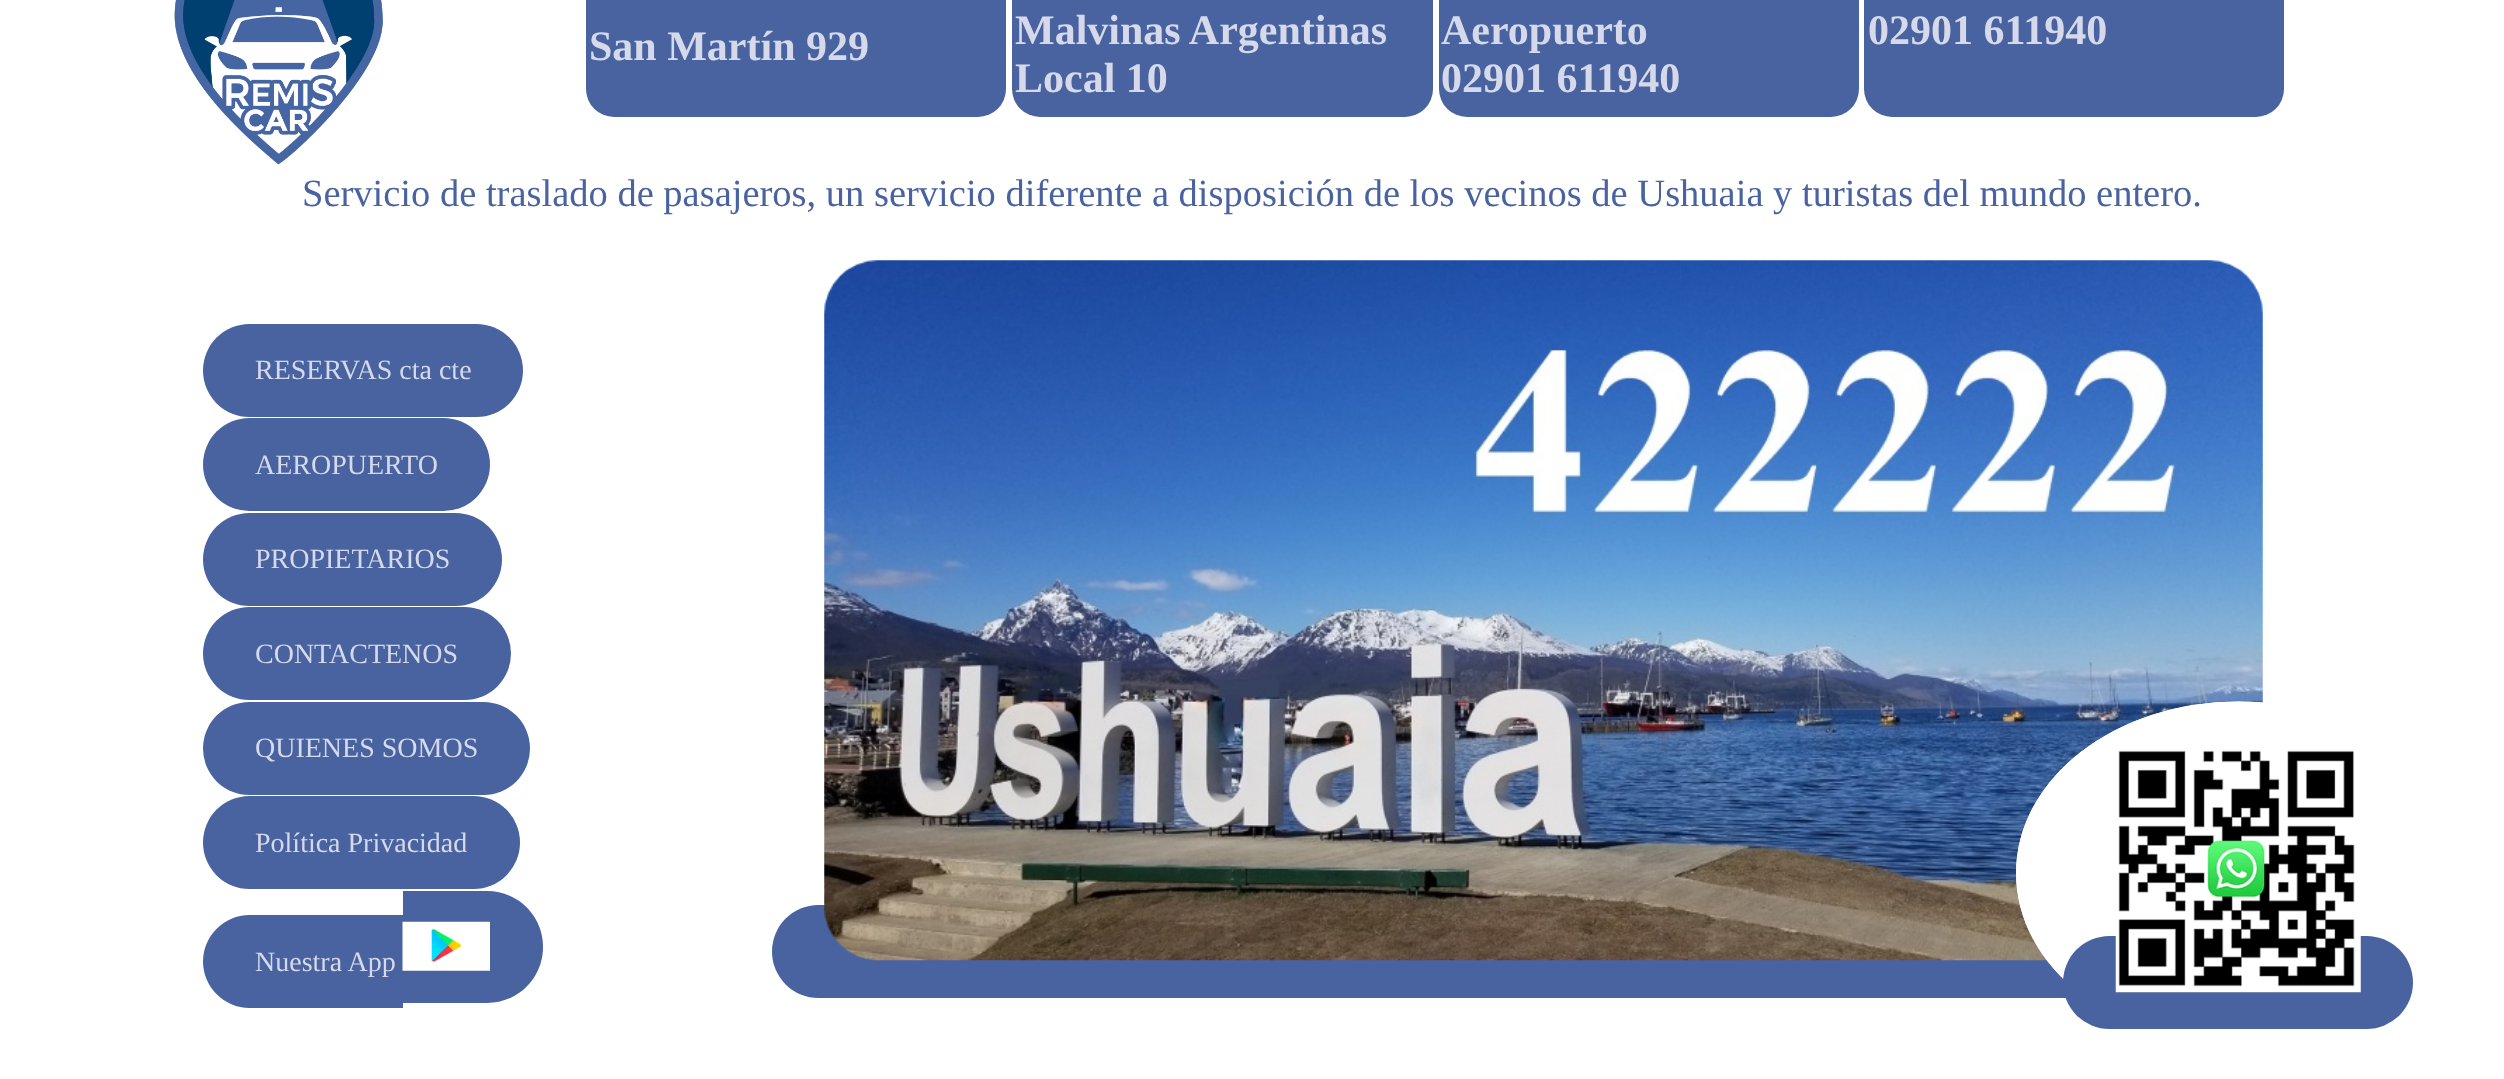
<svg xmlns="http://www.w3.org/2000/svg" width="2504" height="1079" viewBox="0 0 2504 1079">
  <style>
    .t1 { font: bold 42px Liberation Serif; fill: #d5d9ea; }
    .t2 { font: 38.5px Liberation Serif; fill: #4863a0; }
    .t3 { font: 28px Liberation Serif; fill: #d5d9ea; }
  </style>
  <rect width="100%" height="100%" fill="#fff"/>
  <image x="174" y="0" width="209" height="165" href="images/1.png"/>
  <rect x="586" y="-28" width="420" height="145" rx="28" fill="#4863a0"/>
  <text x="589" y="60" class="t1">San Martín 929</text>
  <rect x="1012" y="-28" width="421" height="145" rx="28" fill="#4863a0"/>
  <text x="1015" y="44" class="t1">Malvinas Argentinas</text>
  <text x="1015" y="92" class="t1">Local 10</text>
  <rect x="1439" y="-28" width="420" height="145" rx="28" fill="#4863a0"/>
  <text x="1441" y="44" class="t1">Aeropuerto</text>
  <text x="1441" y="92" class="t1">02901 611940</text>
  <rect x="1864" y="-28" width="420" height="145" rx="28" fill="#4863a0"/>
  <text x="1868" y="44" class="t1">02901 611940</text>
  <text x="302" y="206" class="t2">Servicio de traslado de pasajeros, un servicio diferente a disposición de los vecinos de Ushuaia y turistas del mundo entero.</text>
  <rect x="203" y="324" width="320" height="93" rx="46.5" fill="#4863a0"/>
  <text x="255" y="379" class="t3">RESERVAS cta cte</text>
  <rect x="203" y="418" width="287" height="93" rx="46.5" fill="#4863a0"/>
  <text x="255" y="474" class="t3">AEROPUERTO</text>
  <rect x="203" y="513" width="299" height="93" rx="46.5" fill="#4863a0"/>
  <text x="255" y="568" class="t3">PROPIETARIOS</text>
  <rect x="203" y="607" width="308" height="93" rx="46.5" fill="#4863a0"/>
  <text x="255" y="663" class="t3">CONTACTENOS</text>
  <rect x="203" y="702" width="327" height="93" rx="46.5" fill="#4863a0"/>
  <text x="255" y="757" class="t3">QUIENES SOMOS</text>
  <rect x="203" y="796" width="317" height="93" rx="46.5" fill="#4863a0"/>
  <text x="255" y="852" class="t3">Política Privacidad</text>
  <path d="M249.5 915H403V1008H249.5C224 1008 203 987 203 961.5C203 936 224 915 249.5 915Z" fill="#4863a0"/>
  <text x="255" y="971" class="t3">Nuestra App</text>
  <path d="M403 891H487C518 891 543 916 543 947C543 978 518 1003 487 1003H403Z" fill="#4863a0"/>
  <image x="402" y="921" width="88" height="50" href="images/2.png"/>
  <rect x="772" y="905" width="1543" height="93" rx="46.5" fill="#4863a0"/>
  <image x="824" y="260" width="1439" height="701" href="images/3.png"/>
  <ellipse cx="2238" cy="873" rx="222" ry="171.5" fill="#fff"/>
  <path d="M2238 702.5C2360.5 702.5 2459.5 779 2459.5 873C2459.5 967.5 2360.5 1044 2238 1044C2116 1044 2017 967.5 2017 873C2017 779 2116 702.5 2238 702.5Z" fill="none" stroke="#fff" stroke-width="1.8"/>
  <rect x="2063" y="936" width="350" height="93" rx="46.5" fill="#4863a0"/>
  <image x="2115" y="750" width="246" height="243" href="images/4.png"/>
</svg>
